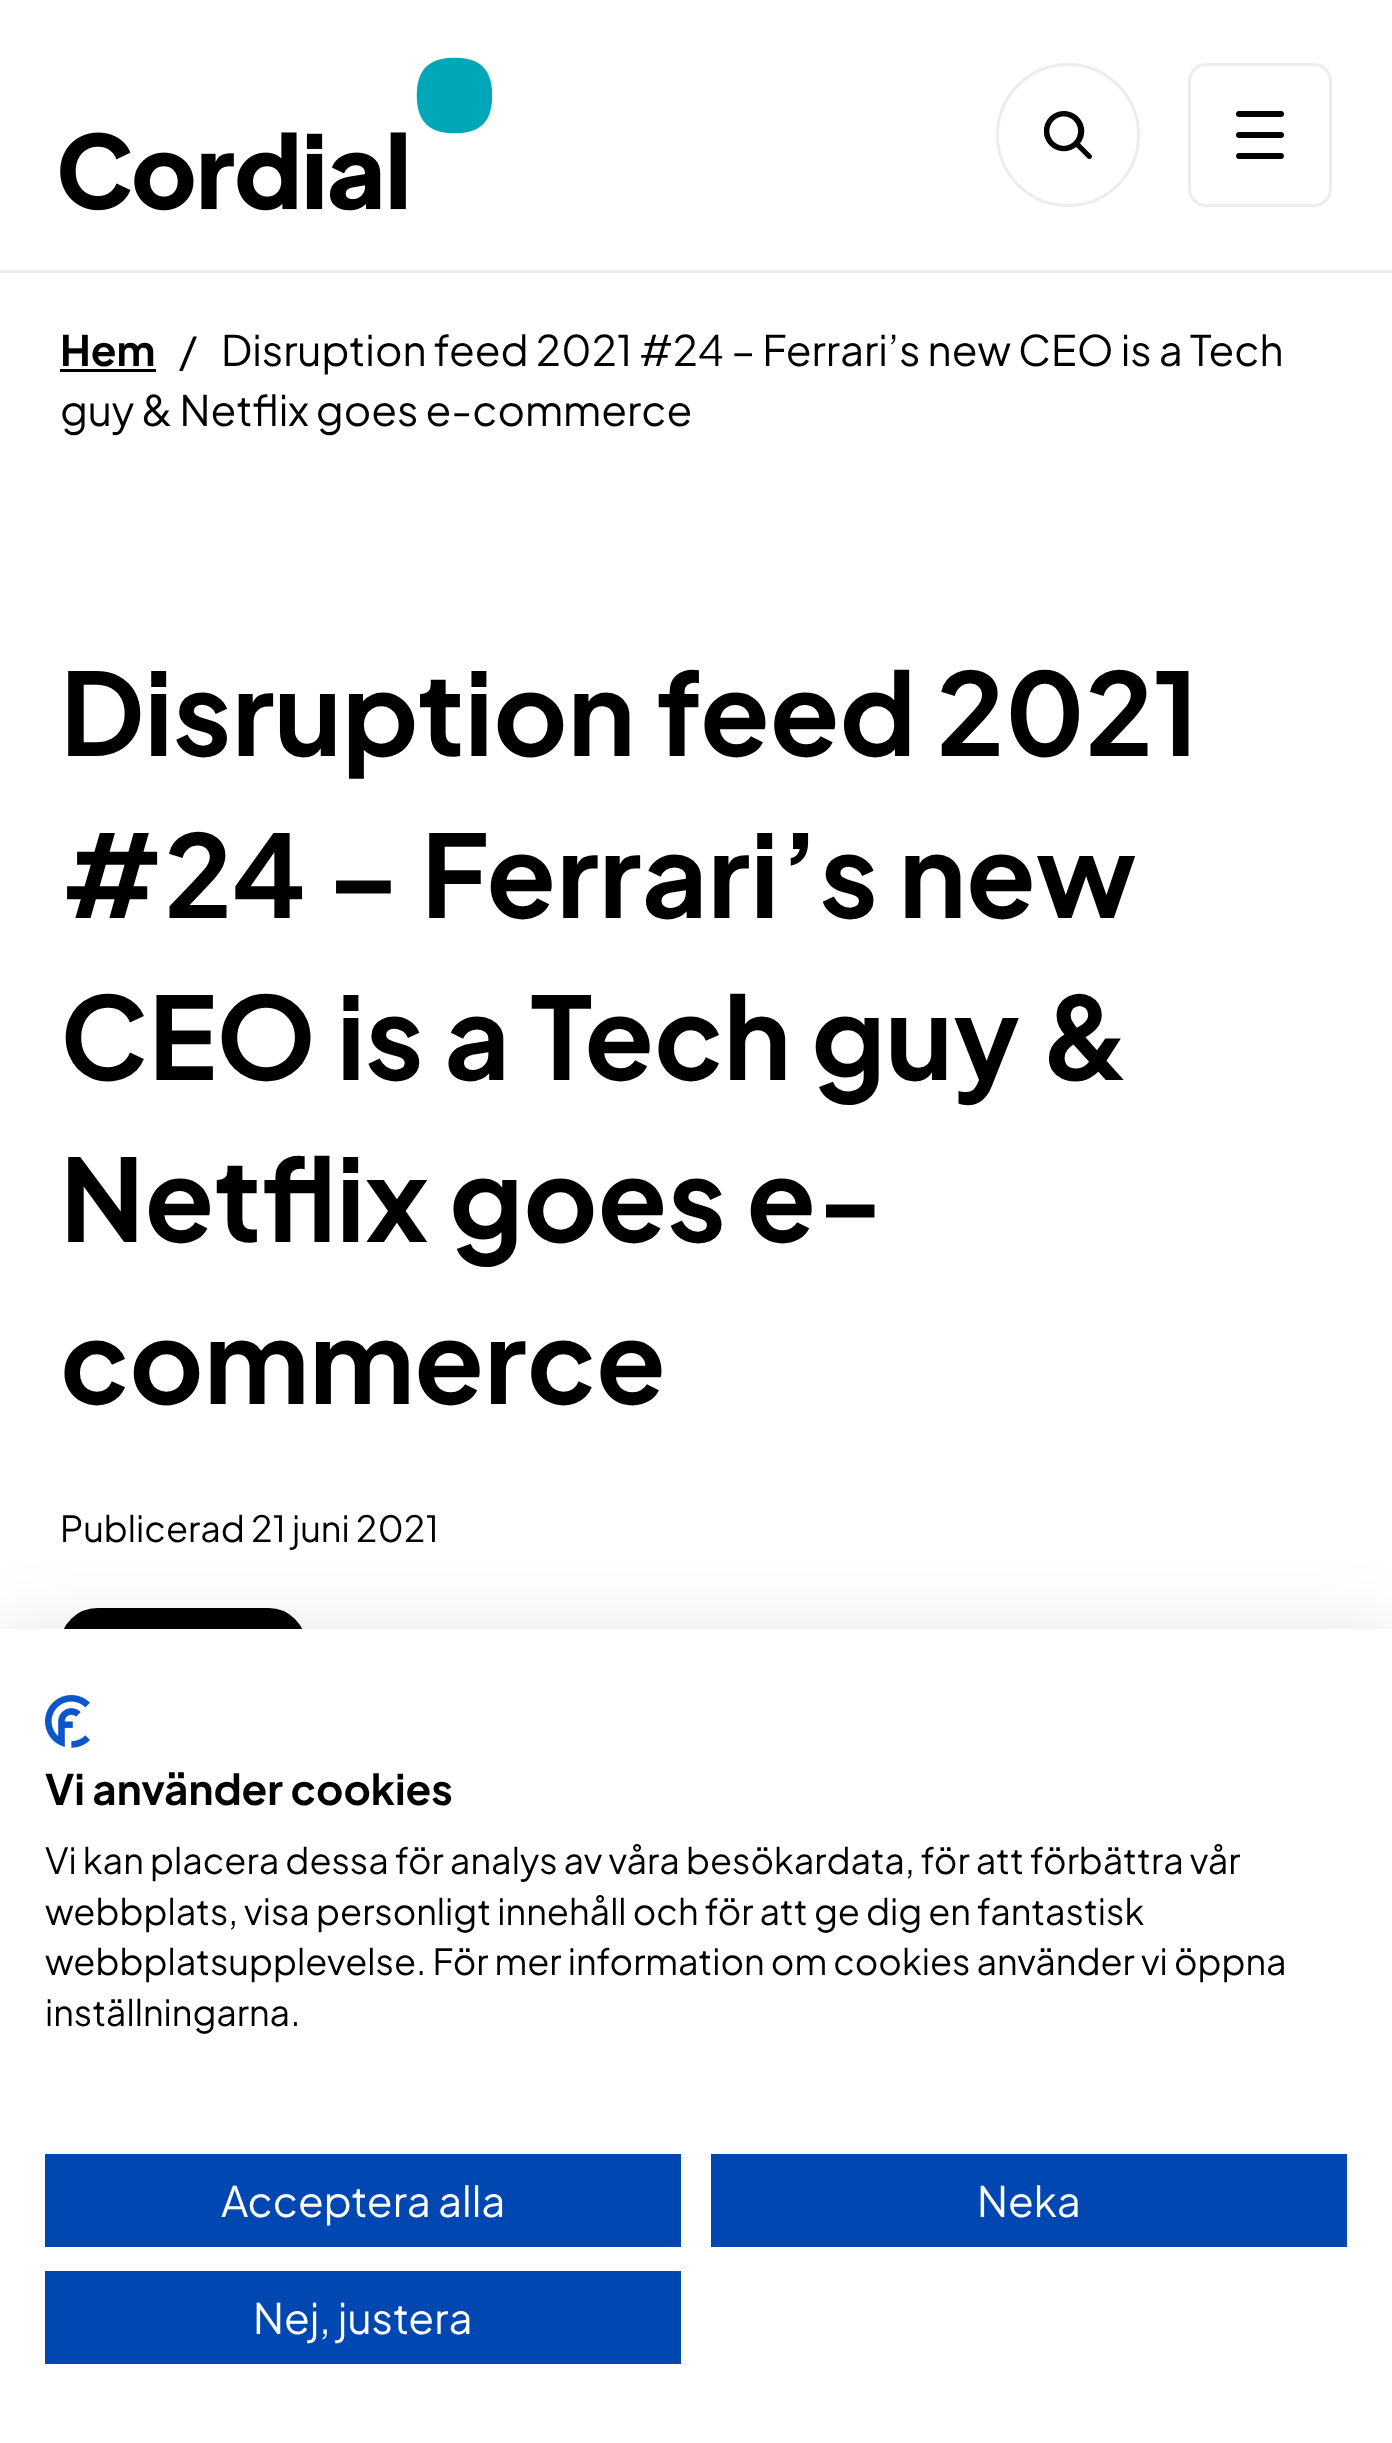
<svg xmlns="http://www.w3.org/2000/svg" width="1392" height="2443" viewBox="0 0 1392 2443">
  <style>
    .t1 { font: bold 42px Plus Jakarta Sans; fill: #000; }
    .t2 { font: 42px Plus Jakarta Sans; fill: #000; }
    .t3 { font: bold 114px Plus Jakarta Sans; fill: #000; }
    .t4 { font: 36px Plus Jakarta Sans; fill: #000; }
    .t5 { font: 42px Plus Jakarta Sans; fill: #fff; }
  </style>
  <rect width="100%" height="100%" fill="#fff"/>
  <rect x="-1.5" y="-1.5" width="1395" height="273" fill="none" stroke="#ededed" stroke-width="3"/>
  <image x="60" y="57" width="432" height="154" href="images/1.png"/>
  <circle cx="1068" cy="135" r="70.5" fill="none" stroke="#ededed" stroke-width="3"/>
  <image x="1044" y="111" width="48" height="48" href="images/2.png"/>
  <rect x="1189.5" y="64.5" width="141" height="141" rx="16.5" fill="none" stroke="#ededed" stroke-width="3"/>
  <image x="1236" y="111" width="48" height="48" href="images/3.png"/>
  <text x="60" y="366" class="t1">Hem</text>
  <rect x="60" y="369" width="96" height="3" fill="#000"/>
  <text x="179" y="366" class="t2">/</text>
  <text x="221" y="366" class="t2">Disruption feed 2021 #24 – Ferrari’s new CEO is a Tech</text>
  <text x="60" y="426" class="t2">guy &amp; Netflix goes e-commerce</text>
  <text x="60" y="756" class="t3">Disruption feed 2021</text>
  <text x="60" y="918" class="t3">#24 – Ferrari’s new</text>
  <text x="60" y="1080" class="t3">CEO is a Tech guy &amp;</text>
  <text x="60" y="1242" class="t3">Netflix goes e-</text>
  <text x="60" y="1404" class="t3">commerce</text>
  <text x="60" y="1542" class="t4">Publicerad 21 juni 2021</text>
  <rect x="61.5" y="1609.5" width="243" height="72" rx="36" fill="#000" stroke="#000" stroke-width="3"/>
  <rect x="0" y="1629" width="1392" height="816" fill="#0000001a" filter="blur(36px)"/>
  <rect x="0" y="1629" width="1392" height="814" fill="#fff"/>
  <image x="45" y="1695" width="45" height="53" href="images/4.png"/>
  <text x="45" y="1805" class="t1">Vi använder cookies</text>
  <text x="45" y="1874" class="t4">Vi kan placera dessa för analys av våra besökardata, för att förbättra vår</text>
  <text x="45" y="1925" class="t4">webbplats, visa personligt innehåll och för att ge dig en fantastisk</text>
  <text x="45" y="1975" class="t4">webbplatsupplevelse. För mer information om cookies använder vi öppna</text>
  <text x="45" y="2026" class="t4">inställningarna.</text>
  <rect x="45" y="2154" width="636" height="93" fill="#0047b2"/>
  <text x="221" y="2217" class="t5">Acceptera alla</text>
  <rect x="711" y="2154" width="636" height="93" fill="#0047b2"/>
  <text x="977" y="2217" class="t5">Neka</text>
  <rect x="45" y="2271" width="636" height="93" fill="#0047b2"/>
  <text x="253" y="2334" class="t5">Nej, justera</text>
</svg>
